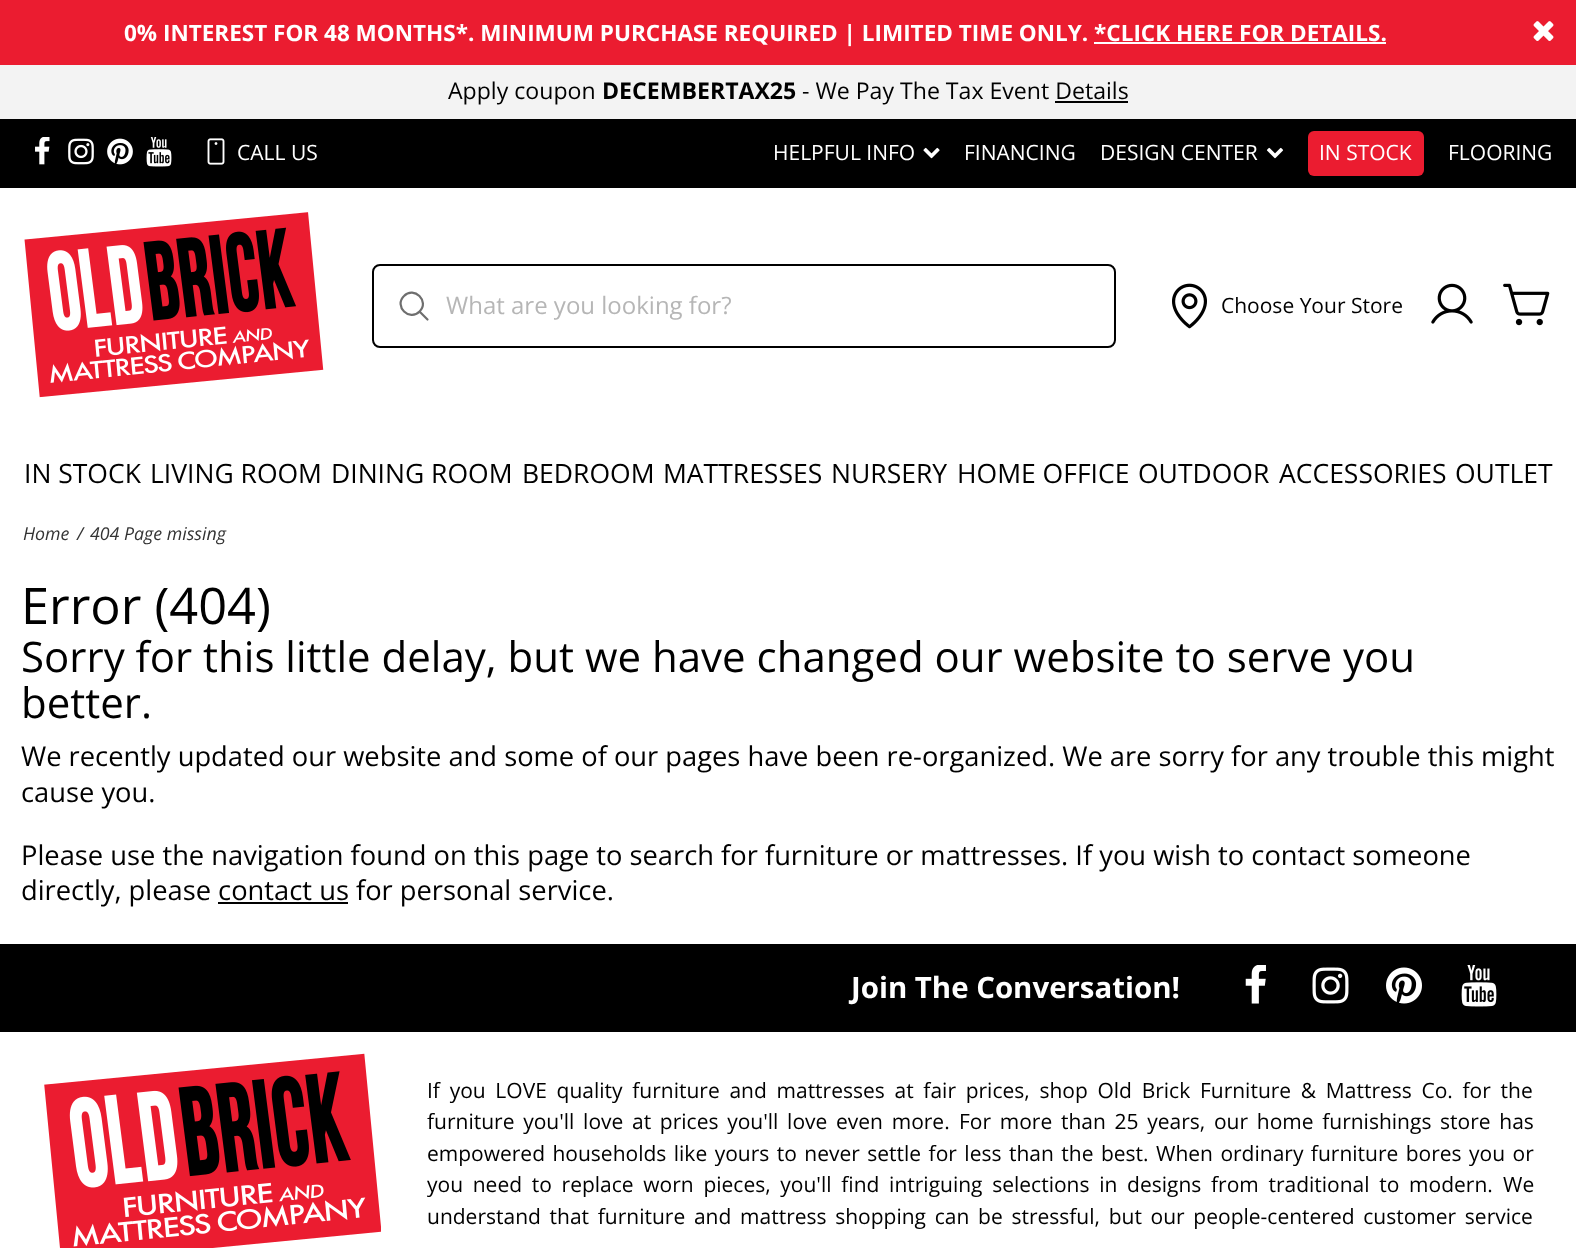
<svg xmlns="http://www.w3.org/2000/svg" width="1576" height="1248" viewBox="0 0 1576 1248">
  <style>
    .t1 { font: bold 22.5px Open Sans; fill: #fff; }
    .t2 { font: 23.1px Open Sans; fill: #000; }
    .t3 { font: bold 23.1px Open Sans; fill: #000; }
    .t4 { font: 21px Open Sans; fill: #fff; }
    .t5 { font: 24px Open Sans; fill: #b6b6b6; }
    .t6 { font: 21px Open Sans; fill: #000; }
    .t7 { font: 26.5px Open Sans; fill: #000; }
    .t8 { font: italic 17.75px Open Sans; fill: #333; }
    .t9 { font: 50.5px Open Sans; fill: #000; }
    .t10 { font: 42px Open Sans; fill: #000; }
    .t11 { font: 27.3px Open Sans; fill: #000; }
    .t12 { font: bold 29.4px Open Sans; fill: #fff; }
  </style>
  <rect width="100%" height="100%" fill="#fff"/>
  <rect x="0" y="0" width="1576" height="65" fill="#eb1c30"/>
  <text x="124" y="41" class="t1">0% INTEREST FOR 48 MONTHS*. MINIMUM PURCHASE REQUIRED | LIMITED TIME ONLY. *CLICK HERE FOR DETAILS.</text>
  <rect x="1094" y="42" width="292" height="2" fill="#fff"/>
  <image x="1533" y="21" width="21" height="20" href="images/1.png"/>
  <rect x="0" y="65" width="1576" height="54" fill="#f3f3f3"/>
  <text x="448" y="99" class="t2">Apply coupon</text>
  <text x="602" y="99" class="t3">DECEMBERTAX25</text>
  <text x="802" y="99" class="t2">- We Pay The Tax Event Details</text>
  <rect x="1055" y="101" width="73" height="2" fill="#000"/>
  <rect x="0" y="119" width="1576" height="69" fill="#000"/>
  <image x="35" y="137" width="15" height="28" href="images/2.png"/>
  <image x="68" y="138" width="26" height="27" href="images/3.png"/>
  <image x="107" y="138" width="26" height="27" href="images/4.png"/>
  <image x="146" y="137" width="26" height="30" href="images/5.png"/>
  <image x="207" y="138" width="18" height="27" href="images/6.png"/>
  <text x="237" y="160" class="t4">CALL US</text>
  <text x="773" y="160" class="t4">HELPFUL INFO</text>
  <image x="923" y="147" width="17" height="12" href="images/7.png"/>
  <text x="964" y="160" class="t4">FINANCING</text>
  <text x="1100" y="160" class="t4">DESIGN CENTER</text>
  <image x="1266" y="147" width="18" height="12" href="images/8.png"/>
  <rect x="1308" y="131" width="116" height="45" rx="6" fill="#eb1c30"/>
  <text x="1319" y="160" class="t4">IN STOCK</text>
  <text x="1448" y="160" class="t4">FLOORING</text>
  <image x="24" y="212" width="300" height="186" href="images/9.png"/>
  <rect x="373" y="265" width="742" height="82" rx="7" fill="none" stroke="#000" stroke-width="2"/>
  <path d="M427.5 319.5L419.5 311.5M419.5 311.5C430 301.5 414 285.5 404 296C393.5 306 409.5 322 419.5 311.5Z" fill="none" stroke="#6e6e6e" stroke-width="2.2" stroke-linecap="round" stroke-linejoin="round"/>
  <text x="446" y="314" class="t5">What are you looking for?</text>
  <image x="1172" y="283" width="35" height="46" href="images/10.png"/>
  <text x="1221" y="313" class="t6">Choose Your Store</text>
  <image x="1431" y="283" width="42" height="41" href="images/11.png"/>
  <image x="1503" y="283" width="47" height="43" href="images/12.png"/>
  <text x="24" y="483" class="t7">IN STOCK</text>
  <text x="150" y="483" class="t7">LIVING ROOM</text>
  <text x="331" y="483" class="t7">DINING ROOM</text>
  <text x="522" y="483" class="t7">BEDROOM</text>
  <text x="663" y="483" class="t7">MATTRESSES</text>
  <text x="831" y="483" class="t7">NURSERY</text>
  <text x="957" y="483" class="t7">HOME OFFICE</text>
  <text x="1138" y="483" class="t7">OUTDOOR</text>
  <text x="1279" y="483" class="t7">ACCESSORIES</text>
  <text x="1455" y="483" class="t7">OUTLET</text>
  <text x="23" y="540" class="t8">Home</text>
  <text x="77" y="540" class="t8">/</text>
  <text x="90" y="540" class="t8">404 Page missing</text>
  <text x="21" y="624" class="t9">Error (404)</text>
  <text x="21" y="672" class="t10">Sorry for this little delay, but we have changed our website to serve you</text>
  <text x="21" y="718" class="t10">better.</text>
  <text x="21" y="766" class="t11">We recently updated our website and some of our pages have been re-organized. We are sorry for any trouble this might</text>
  <text x="21" y="802" class="t11">cause you.</text>
  <text x="21" y="865" class="t11">Please use the navigation found on this page to search for furniture or mattresses. If you wish to contact someone</text>
  <text x="21" y="900" class="t11">directly, please contact us for personal service.</text>
  <rect x="218" y="902" width="130" height="2" fill="#000"/>
  <rect x="0" y="944" width="1576" height="88" fill="#000"/>
  <text x="851" y="998" class="t12">Join The Conversation!</text>
  <image x="1245" y="965" width="21" height="39" href="images/13.png"/>
  <image x="1312" y="967" width="37" height="37" href="images/14.png"/>
  <image x="1386" y="967" width="36" height="37" href="images/15.png"/>
  <image x="1461" y="965" width="36" height="42" href="images/16.png"/>
  <image x="44" y="1053" width="337" height="195" href="images/17.png"/>
  <text x="427" y="1098" word-spacing="4.25" class="t6">If you LOVE quality furniture and mattresses at fair prices, shop Old Brick Furniture &amp; Mattress Co. for the</text>
  <text x="427" y="1129" word-spacing="3.25" class="t6">furniture you'll love at prices you'll love even more.</text>
  <text x="959" y="1129" word-spacing="3.25" class="t6">For more than 25 years, our home furnishings store has</text>
  <text x="427" y="1161" word-spacing="2" class="t6">empowered households like yours to never settle for less than the best.</text>
  <text x="1156" y="1161" word-spacing="2" class="t6">When ordinary furniture bores you or</text>
  <text x="427" y="1192" word-spacing="4.25" class="t6">you need to replace worn pieces, you'll find intriguing selections in designs from traditional to modern.</text>
  <text x="1503" y="1192" class="t6">We</text>
  <text x="427" y="1224" word-spacing="3.25" class="t6">understand that furniture and mattress shopping can be stressful, but our people-centered customer service</text>
</svg>
